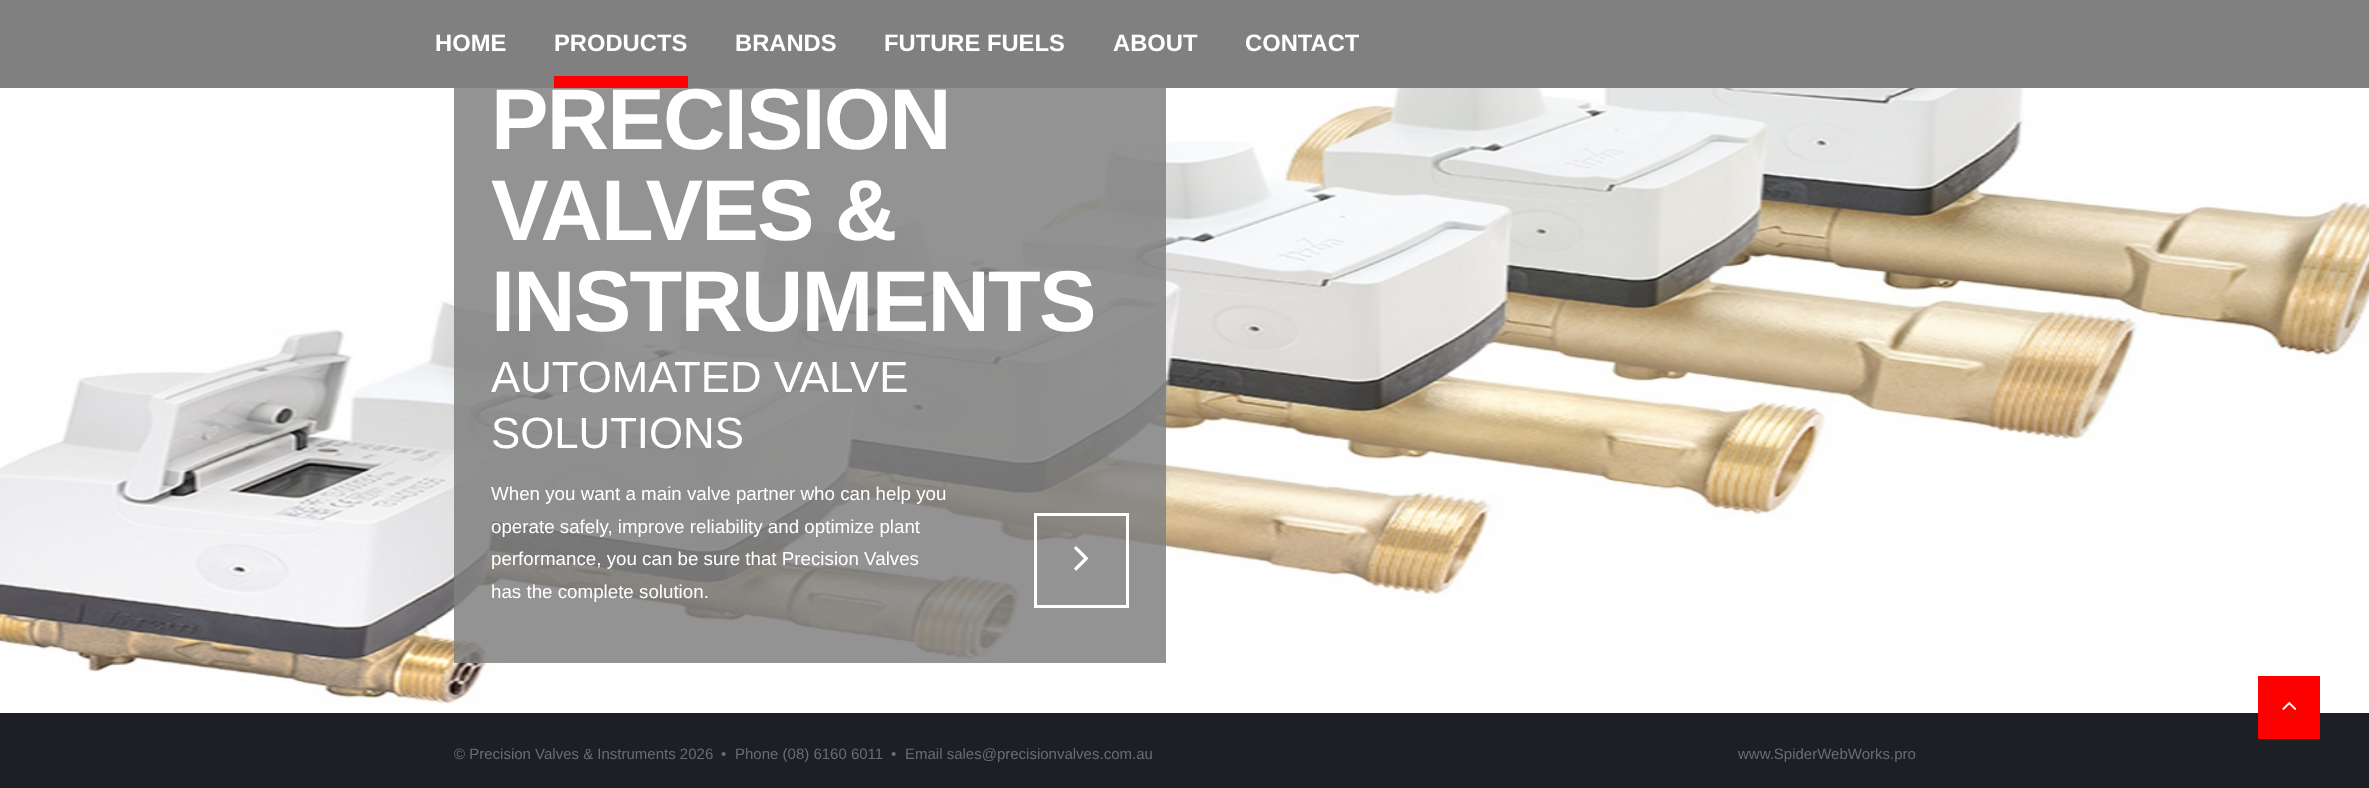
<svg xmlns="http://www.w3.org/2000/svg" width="2369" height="788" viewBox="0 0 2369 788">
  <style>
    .t1 { font: bold 23.75px Liberation Sans; fill: #fff; }
    .t2 { font: bold 86.25px Liberation Sans; letter-spacing: -1.75px; fill: #fff; }
    .t3 { font: 43.75px Liberation Sans; fill: #fff; }
    .t4 { font: 18.75px Liberation Sans; fill: #fff; }
    .t5 { font: 15px Liberation Sans; fill: #6a6d6f; }
  </style>
  <rect width="100%" height="100%" fill="#fff"/>
  <rect x="0" y="0" width="2369" height="88" fill="#808080"/>
  <text x="435" y="51" class="t1">HOME</text>
  <text x="554" y="51" class="t1">PRODUCTS</text>
  <rect x="554" y="76" width="134" height="12" fill="#fd0100"/>
  <text x="735" y="51" class="t1">BRANDS</text>
  <text x="884" y="51" class="t1">FUTURE FUELS</text>
  <text x="1113" y="51" class="t1">ABOUT</text>
  <text x="1245" y="51" class="t1">CONTACT</text>
  <image x="0" y="88" width="2369" height="616" href="images/1.png"/>
  <rect x="454" y="88" width="712" height="575" fill="#808080d9"/>
  <text x="491" y="149" class="t2">PRECISION</text>
  <text x="491" y="240" class="t2">VALVES &amp;</text>
  <text x="491" y="331" class="t2">INSTRUMENTS</text>
  <text x="491" y="392" class="t3">AUTOMATED VALVE</text>
  <text x="491" y="448" class="t3">SOLUTIONS</text>
  <text x="491" y="500" class="t4">When you want a main valve partner who can help you</text>
  <text x="491" y="533" class="t4">operate safely, improve reliability and optimize plant</text>
  <text x="491" y="565" class="t4">performance, you can be sure that Precision Valves</text>
  <text x="491" y="598" class="t4">has the complete solution.</text>
  <rect x="1035.5" y="514.5" width="92" height="92" fill="none" stroke="#fff" stroke-width="3"/>
  <image x="1074" y="546" width="15" height="25" href="images/2.png"/>
  <rect x="0" y="713" width="2369" height="75" fill="#1c2025"/>
  <text x="454" y="759" class="t5">© Precision Valves &amp; Instruments 2026</text>
  <text x="721" y="759" class="t5">•</text>
  <text x="735" y="759" class="t5">Phone (08) 6160 6011</text>
  <text x="891" y="759" class="t5">•</text>
  <text x="905" y="759" class="t5">Email sales@precisionvalves.com.au</text>
  <text x="1738" y="759" class="t5">www.SpiderWebWorks.pro</text>
  <rect x="2258" y="676" width="62" height="63" fill="#fd0100"/>
  <image x="2282" y="701" width="15" height="9" href="images/3.png"/>
</svg>
